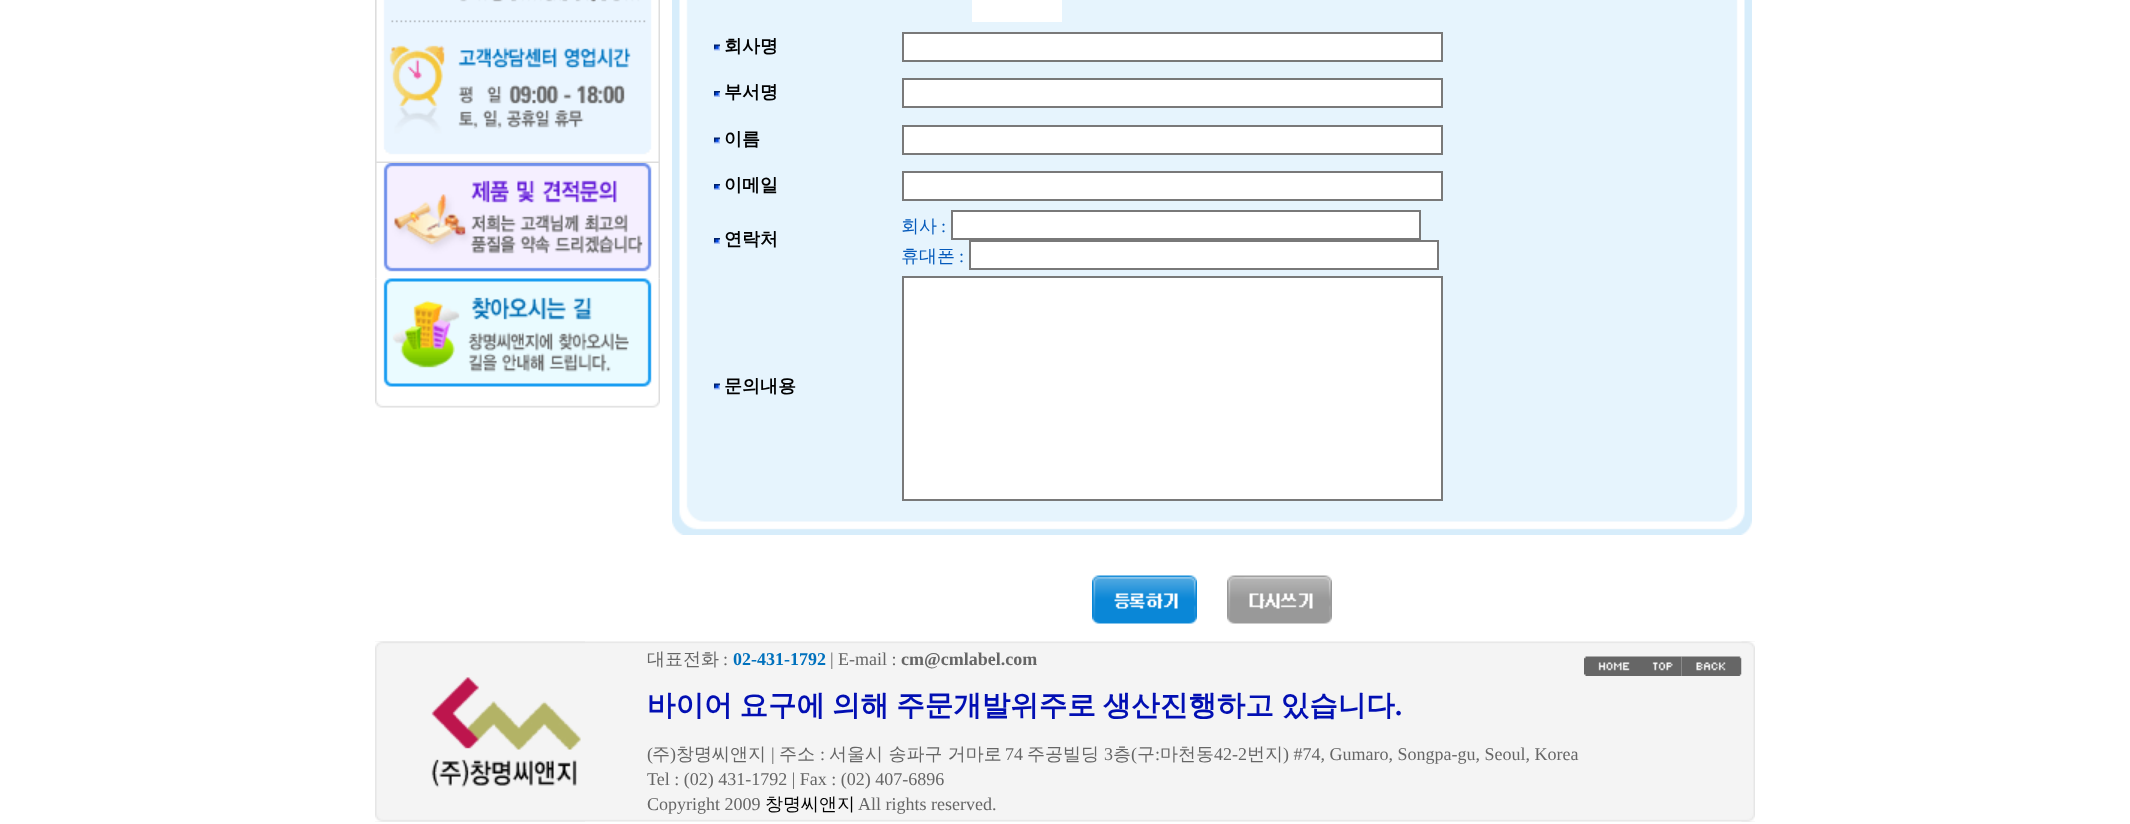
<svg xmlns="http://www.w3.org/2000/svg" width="2130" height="824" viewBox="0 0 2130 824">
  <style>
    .t1 { font: bold 18px WenQuanYi Zen Hei; fill: #000; }
    .t2 { font: 500 18px WenQuanYi Zen Hei; fill: #055abb; }
    .t3 { font: 18px Liberation Serif; fill: #055abb; }
    .t4 { font: 500 18px WenQuanYi Zen Hei; fill: #666; }
    .t5 { font: 18px Liberation Serif; fill: #666; }
    .t6 { font: bold 18px Liberation Serif; fill: #0071bd; }
    .t7 { font: bold 18px Liberation Serif; fill: #666; }
    .t8 { font: bold 28.5px WenQuanYi Zen Hei; fill: #020fb3; }
    .t9 { font: bold 28.5px Liberation Serif; fill: #020fb3; }
    .t10 { font: 500 18px WenQuanYi Zen Hei; fill: #000; }
  </style>
  <rect width="100%" height="100%" fill="#fff"/>
  <image x="375" y="0" width="285" height="163" href="images/1.png"/>
  <image x="375" y="163" width="285" height="116" href="images/2.png"/>
  <image x="375" y="278" width="285" height="116" href="images/3.png"/>
  <image x="375" y="394" width="285" height="14" href="images/4.png"/>
  <image x="672" y="0" width="1080" height="507" href="images/5.png"/>
  <rect x="972" y="0" width="90" height="22" fill="#fff"/>
  <image x="714" y="44" width="6" height="7" href="images/6.png"/>
  <text x="724" y="52" class="t1">회사명</text>
  <rect x="903" y="33" width="539" height="28" fill="#fff" stroke="#797979" stroke-width="2"/>
  <image x="714" y="91" width="6" height="6" href="images/7.png"/>
  <text x="724" y="98" class="t1">부서명</text>
  <rect x="903" y="79" width="539" height="28" fill="#fff" stroke="#797979" stroke-width="2"/>
  <image x="714" y="137" width="6" height="7" href="images/6.png"/>
  <text x="724" y="145" class="t1">이름</text>
  <rect x="903" y="126" width="539" height="28" fill="#fff" stroke="#797979" stroke-width="2"/>
  <image x="714" y="184" width="6" height="6" href="images/7.png"/>
  <text x="724" y="191" class="t1">이메일</text>
  <rect x="903" y="172" width="539" height="28" fill="#fff" stroke="#797979" stroke-width="2"/>
  <image x="714" y="238" width="6" height="6" href="images/7.png"/>
  <text x="724" y="245" class="t1">연락처</text>
  <text x="901" y="232" class="t2">회사</text>
  <text x="941" y="232" class="t3">:</text>
  <rect x="952" y="211" width="468" height="28" fill="#fff" stroke="#797979" stroke-width="2"/>
  <text x="901" y="262" class="t2">휴대폰</text>
  <text x="959" y="262" class="t3">:</text>
  <rect x="970" y="241" width="468" height="28" fill="#fff" stroke="#797979" stroke-width="2"/>
  <image x="714" y="383" width="6" height="7" href="images/6.png"/>
  <text x="724" y="392" class="t1">문의내용</text>
  <rect x="903" y="277" width="539" height="223" fill="#fff" stroke="#797979" stroke-width="2"/>
  <image x="672" y="507" width="1080" height="28" href="images/8.png"/>
  <image x="1092" y="575" width="105" height="49" href="images/9.png"/>
  <image x="1227" y="575" width="105" height="49" href="images/10.png"/>
  <image x="375" y="641" width="1380" height="181" href="images/11.png"/>
  <image x="375" y="641" width="210" height="181" href="images/12.png"/>
  <text x="647" y="665" class="t4">대표전화</text>
  <text x="723" y="665" class="t5">:</text>
  <text x="733" y="665" class="t6">02-431-1792</text>
  <text x="830" y="665" class="t5">| E-mail :</text>
  <text x="901" y="665" class="t7">cm@cmlabel.com</text>
  <text x="647" y="715" word-spacing="-1.5" class="t8">바이어 요구에 의해 주문개발위주로 생산진행하고 있습니다</text>
  <text x="1395" y="715" class="t9">.</text>
  <text x="647" y="760" class="t5">(</text>
  <text x="652" y="760" class="t4">주</text>
  <text x="670" y="760" class="t5">)</text>
  <text x="676" y="760" class="t4">창명씨앤지</text>
  <text x="771" y="760" class="t5">|</text>
  <text x="779" y="760" class="t4">주소</text>
  <text x="820" y="760" class="t5">:</text>
  <text x="829" y="760" class="t4">서울시 송파구 거마로</text>
  <text x="1005" y="760" class="t5">74</text>
  <text x="1027" y="760" class="t4">주공빌딩</text>
  <text x="1104" y="760" class="t5">3</text>
  <text x="1113" y="760" class="t4">층</text>
  <text x="1131" y="760" class="t5">(</text>
  <text x="1137" y="760" class="t4">구</text>
  <text x="1155" y="760" class="t5">:</text>
  <text x="1160" y="760" class="t4">마천동</text>
  <text x="1214" y="760" class="t5">42-2</text>
  <text x="1247" y="760" class="t4">번지</text>
  <text x="1283" y="760" class="t5">) #74, Gumaro, Songpa-gu, Seoul, Korea</text>
  <text x="647" y="785" class="t5">Tel : (02) 431-1792 | Fax : (02) 407-6896</text>
  <text x="647" y="810" class="t5">Copyright 2009</text>
  <text x="765" y="810" class="t10">창명씨앤지</text>
  <text x="858" y="810" class="t5">All rights reserved.</text>
  <image x="1584" y="656" width="57" height="20" href="images/13.png"/>
  <image x="1641" y="656" width="41" height="20" href="images/14.png"/>
  <image x="1681" y="656" width="61" height="20" href="images/15.png"/>
  <image x="1741" y="641" width="14" height="181" href="images/16.png"/>
</svg>
